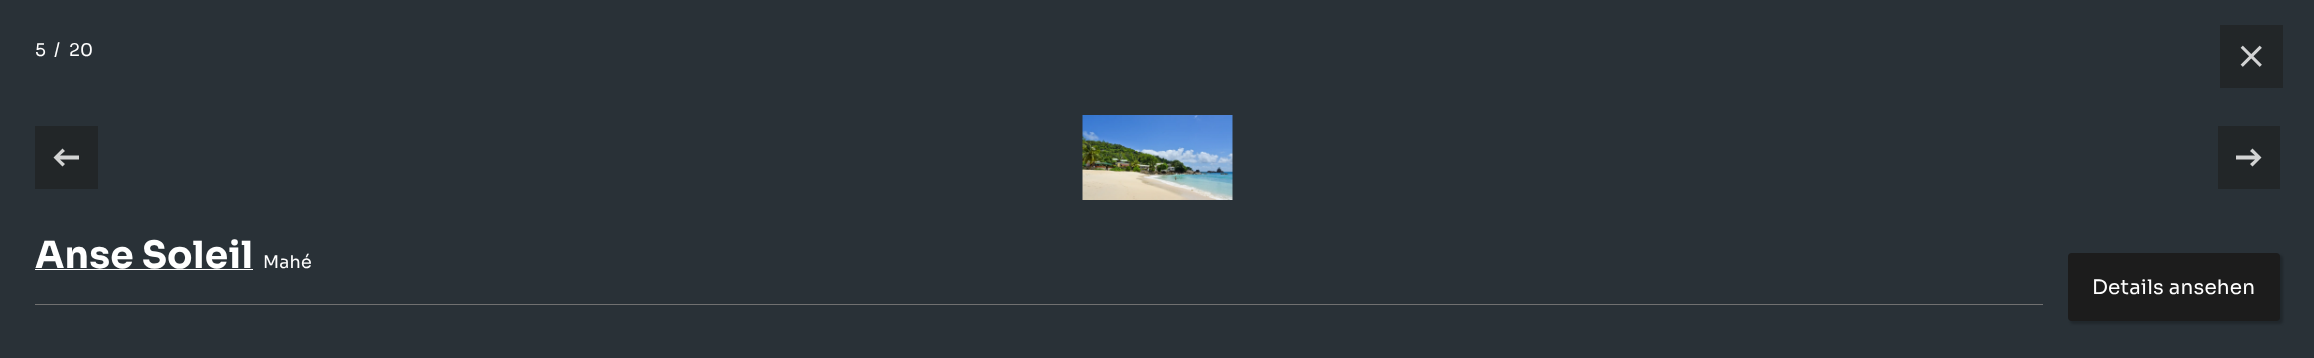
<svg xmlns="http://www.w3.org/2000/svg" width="2314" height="358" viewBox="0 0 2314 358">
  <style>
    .t1 { font: 17.5px Sora; letter-spacing: 0.2px; fill: #fff; }
    .t2 { font: bold 37.5px Sora; letter-spacing: 0.2px; fill: #fff; }
    .t3 { font: 20px Sora; letter-spacing: 0.2px; fill: #fff; }
  </style>
  <rect width="100%" height="100%" fill="#293137"/>
  <text x="35" y="56" class="t1">5</text>
  <text x="54" y="56" class="t1">/</text>
  <text x="69" y="56" class="t1">20</text>
  <rect x="2220" y="25" width="63" height="63" fill="#222628"/>
  <image x="2240" y="45" width="22" height="22" href="images/1.png"/>
  <rect x="35" y="126" width="63" height="63" fill="#222628"/>
  <path d="M65 164L62.5 166.5L53.5 157.5L62.5 148.5L65 151L60 155.5H79V159.5H60Z" fill="#d3d4d4"/>
  <image x="1082" y="115" width="151" height="85" href="images/2.png"/>
  <rect x="2218" y="126" width="62" height="63" fill="#222628"/>
  <path d="M2255 159.5L2250 164L2252.5 166.5L2261.5 157.5L2252.5 148.5L2250 151L2255 155.5H2236V159.5Z" fill="#d3d4d4"/>
  <rect x="35" y="304" width="2008" height="1" fill="#707070"/>
  <text x="35" y="268" class="t2">Anse Soleil</text>
  <rect x="35" y="269" width="218" height="1" fill="#fff"/>
  <text x="263" y="268" class="t1">Mahé</text>
  <rect x="2070" y="255" width="213" height="69" rx="4" fill="#00000033" filter="blur(1px)"/>
  <rect x="2068" y="253" width="212" height="68" rx="4" fill="#1c1c1c"/>
  <text x="2092" y="294" class="t3">Details ansehen</text>
</svg>
